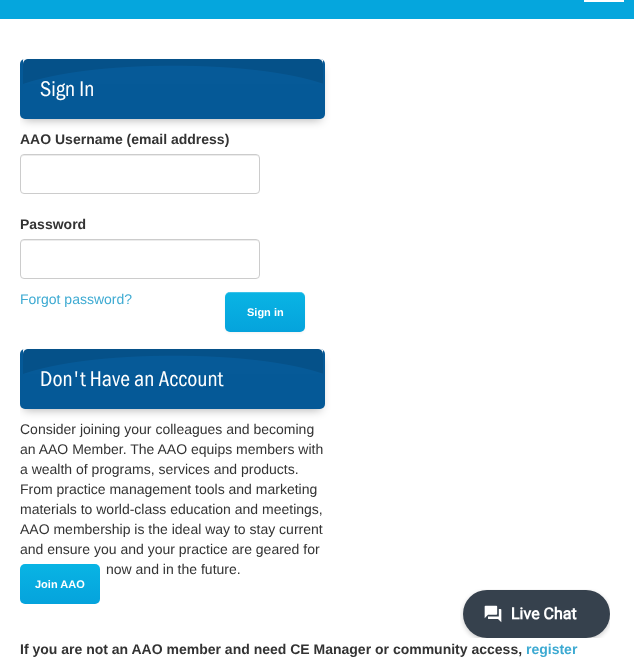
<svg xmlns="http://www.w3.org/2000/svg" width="634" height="662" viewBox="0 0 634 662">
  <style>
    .t1 { font: 22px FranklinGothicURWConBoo; fill: #fff; }
    .t2 { font: bold 14px Liberation Sans; fill: #333; }
    .t3 { font: 14px Liberation Sans; fill: #3daad2; }
    .t4 { font: bold 11px Liberation Sans; fill: #fff; }
    .t5 { font: 14px Liberation Sans; fill: #333; }
    .t6 { font: bold 14px Liberation Sans; fill: #3daad2; }
  </style>
  <defs>
    <clipPath id="clip1"><rect x="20" y="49" width="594" height="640"/></clipPath>
    <linearGradient id="g1" gradientUnits="userSpaceOnUse" x1="265" y1="292" x2="265" y2="332"><stop offset="0" stop-color="#09b4e4"/><stop offset="1" stop-color="#05a3dc"/></linearGradient>
    <linearGradient id="g2" gradientUnits="userSpaceOnUse" x1="60" y1="564" x2="60" y2="604"><stop offset="0" stop-color="#09b4e4"/><stop offset="1" stop-color="#05a3dc"/></linearGradient>
  </defs>
  <rect width="100%" height="100%" fill="#fff"/>
  <rect x="0" y="0" width="634" height="19" fill="#05a6dd"/>
  <rect x="584" y="0" width="40" height="2" fill="#fff"/>
  <g clip-path="url(#clip1)">
    <rect x="24" y="68" width="297" height="52" rx="1" fill="#0000004d" filter="blur(5px)"/>
  </g>
  <rect x="20" y="59" width="305" height="60" rx="5" fill="#055997"/>
  <image x="23" y="59" width="300" height="25" href="images/1.png"/>
  <text x="40" y="96" class="t1">Sign In</text>
  <text x="20" y="144" class="t2">AAO Username (email address)</text>
  <path d="M24 156H257L259 157V159C259 157 258 155 256 155H24C22 155 21 157 21 159C21 157 22 156 24 156Z" fill="#ececec"/>
  <rect x="20.5" y="154.5" width="239" height="39" rx="3.5" fill="none" stroke="#ccc"/>
  <text x="20" y="229" class="t2">Password</text>
  <path d="M24 241H257L259 242V244C259 242 258 240 256 240H24C22 240 21 242 21 244C21 242 22 241 24 241Z" fill="#ececec"/>
  <rect x="20.5" y="239.5" width="239" height="39" rx="3.5" fill="none" stroke="#ccc"/>
  <text x="20" y="304" class="t3">Forgot password?</text>
  <rect x="225" y="293" width="80" height="40" rx="5" fill="#0000000d" filter="blur(1px)"/>
  <rect x="225" y="292" width="80" height="40" rx="5" fill="url(#g1)"/>
  <path d="M230 293H300C303 293 305 295 305 298C305 289 294 292 288 292H242C236 292 225 289 225 298C225 295 227 293 230 293Z" fill="#ffffff33"/>
  <text x="247" y="316" class="t4">Sign in</text>
  <g clip-path="url(#clip1)">
    <rect x="24" y="358" width="297" height="52" rx="1" fill="#0000004d" filter="blur(5px)"/>
  </g>
  <rect x="20" y="349" width="305" height="60" rx="5" fill="#055997"/>
  <image x="23" y="349" width="300" height="25" href="images/1.png"/>
  <text x="40" y="386" class="t1">Don't Have an Account</text>
  <text x="20" y="434" class="t5">Consider joining your colleagues and becoming</text>
  <text x="20" y="454" class="t5">an AAO Member. The AAO equips members with</text>
  <text x="20" y="474" class="t5">a wealth of programs, services and products.</text>
  <text x="20" y="494" class="t5">From practice management tools and marketing</text>
  <text x="20" y="514" class="t5">materials to world-class education and meetings,</text>
  <text x="20" y="534" class="t5">AAO membership is the ideal way to stay current</text>
  <text x="20" y="554" class="t5">and ensure you and your practice are geared for</text>
  <text x="106" y="574" class="t5">now and in the future.</text>
  <rect x="20" y="564" width="80" height="40" rx="5" fill="url(#g2)"/>
  <text x="35" y="588" class="t4">Join AAO</text>
  <text x="20" y="654" class="t2">If you are not an AAO member and need CE Manager or community access,</text>
  <text x="526" y="654" class="t6">register</text>
  <image x="460" y="589" width="150" height="49" href="images/2.png"/>
</svg>
